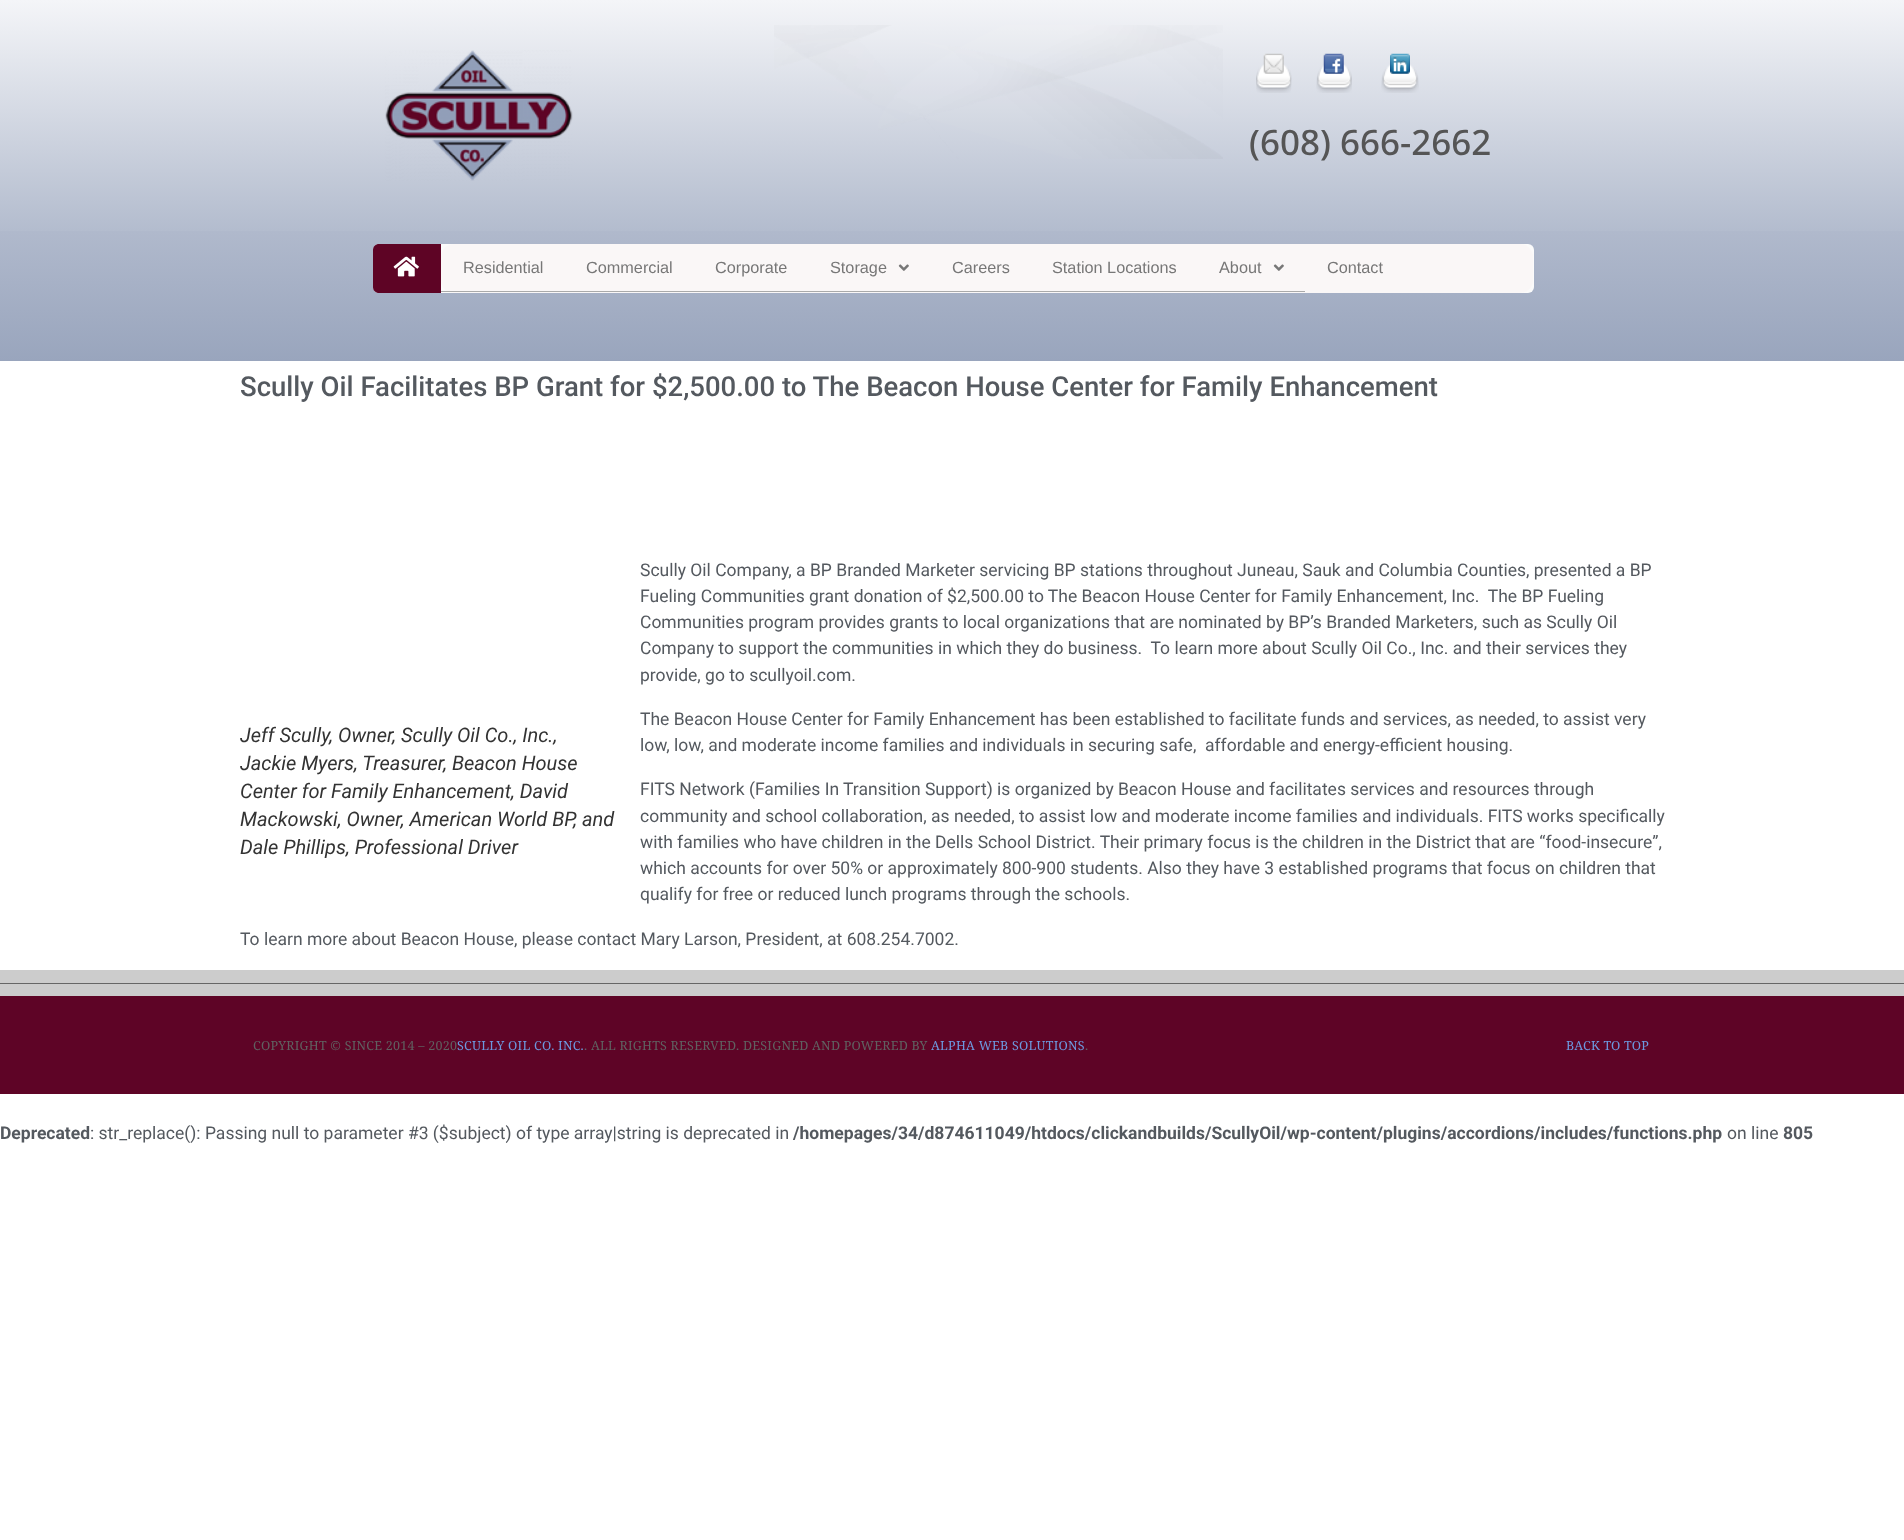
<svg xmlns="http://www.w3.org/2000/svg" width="1904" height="1540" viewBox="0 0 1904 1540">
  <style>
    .t1 { font: 500 35px Noto Sans; fill: #555; }
    .t2 { font: 16.25px Liberation Sans; fill: #777; }
    .t3 { font: 500 27.5px Roboto; fill: #54595f; }
    .t4 { font: 17.5px Roboto; fill: #54595f; }
    .t5 { font: italic 20px Roboto; fill: #333; }
    .t6 { font: 12.5px Noto Serif; letter-spacing: 0.25px; fill: #606060; }
    .t7 { font: 12.5px Noto Serif; letter-spacing: 0.25px; fill: #6d98de; }
    .t8 { font: bold 17.5px Roboto; fill: #54595f; }
  </style>
  <defs>
    <linearGradient id="g1" gradientUnits="userSpaceOnUse" x1="953" y1="0" x2="953" y2="231"><stop offset="0" stop-color="#f4f5f8"/><stop offset="1" stop-color="#b3bcce"/></linearGradient>
    <linearGradient id="g2" gradientUnits="userSpaceOnUse" x1="953" y1="231" x2="953" y2="361"><stop offset="0" stop-color="#b0b9cc"/><stop offset="1" stop-color="#99a5bd"/></linearGradient>
  </defs>
  <rect width="100%" height="100%" fill="#fff"/>
  <rect x="0" y="0" width="1904" height="231" fill="url(#g1)"/>
  <image x="774" y="25" width="449" height="134" href="images/1.png"/>
  <image x="385" y="50" width="188" height="131" href="images/2.png"/>
  <image x="1256" y="64" width="36" height="29" href="images/3.png"/>
  <image x="1263" y="53" width="21" height="21" href="images/4.png"/>
  <image x="1316" y="64" width="36" height="29" href="images/5.png"/>
  <image x="1323" y="53" width="21" height="21" href="images/6.png"/>
  <image x="1381" y="64" width="38" height="29" href="images/7.png"/>
  <image x="1390" y="53" width="20" height="21" href="images/8.png"/>
  <text x="1249" y="155" class="t1">(608) 666-2662</text>
  <rect x="0" y="231" width="1904" height="130" fill="url(#g2)"/>
  <rect x="373" y="244" width="1161" height="49" rx="6" fill="#fbfbfb"/>
  <path d="M379 244H441V293H379C375.5 293 373 290.5 373 287V250C373 246.5 375.5 244 379 244Z" fill="#5e0425"/>
  <image x="393" y="256" width="26" height="21" href="images/9.png"/>
  <rect x="441" y="244" width="1092" height="49" rx="13" fill="#faf7f7"/>
  <rect x="441" y="291" width="864" height="1" fill="#aaa"/>
  <text x="463" y="273" class="t2">Residential</text>
  <text x="586" y="273" class="t2">Commercial</text>
  <text x="715" y="273" class="t2">Corporate</text>
  <text x="830" y="273" class="t2">Storage</text>
  <image x="898" y="264" width="11" height="7" href="images/10.png"/>
  <text x="952" y="273" class="t2">Careers</text>
  <text x="1052" y="273" class="t2">Station Locations</text>
  <text x="1219" y="273" class="t2">About</text>
  <image x="1273" y="264" width="11" height="7" href="images/10.png"/>
  <text x="1327" y="273" class="t2">Contact</text>
  <text x="240" y="396" class="t3">Scully Oil Facilitates BP Grant for $2,500.00 to The Beacon House Center for Family Enhancement</text>
  <text x="640" y="576" class="t4">Scully Oil Company, a BP Branded Marketer servicing BP stations throughout Juneau, Sauk and Columbia Counties, presented a BP</text>
  <text x="640" y="602" class="t4" xml:space="preserve">Fueling Communities grant donation of $2,500.00 to The Beacon House Center for Family Enhancement, Inc.  The BP Fueling</text>
  <text x="640" y="628" class="t4">Communities program provides grants to local organizations that are nominated by BP’s Branded Marketers, such as Scully Oil</text>
  <text x="640" y="654" class="t4" xml:space="preserve">Company to support the communities in which they do business.  To learn more about Scully Oil Co., Inc. and their services they</text>
  <text x="640" y="681" class="t4">provide, go to scullyoil.com.</text>
  <text x="640" y="725" class="t4">The Beacon House Center for Family Enhancement has been established to facilitate funds and services, as needed, to assist very</text>
  <text x="640" y="751" class="t4" xml:space="preserve">low, low, and moderate income families and individuals in securing safe,  affordable and energy-efficient housing.</text>
  <text x="640" y="795" class="t4">FITS Network (Families In Transition Support) is organized by Beacon House and facilitates services and resources through</text>
  <text x="640" y="822" class="t4">community and school collaboration, as needed, to assist low and moderate income families and individuals. FITS works specifically</text>
  <text x="640" y="848" class="t4">with families who have children in the Dells School District. Their primary focus is the children in the District that are “food-insecure”,</text>
  <text x="640" y="874" class="t4">which accounts for over 50% or approximately 800-900 students. Also they have 3 established programs that focus on children that</text>
  <text x="640" y="900" class="t4">qualify for free or reduced lunch programs through the schools.</text>
  <text x="240" y="945" class="t4">To learn more about Beacon House, please contact Mary Larson, President, at 608.254.7002.</text>
  <text x="240" y="742" class="t5">Jeff Scully, Owner, Scully Oil Co., Inc.,</text>
  <text x="240" y="770" class="t5">Jackie Myers, Treasurer, Beacon House</text>
  <text x="240" y="798" class="t5">Center for Family Enhancement, David</text>
  <text x="240" y="826" class="t5">Mackowski, Owner, American World BP, and</text>
  <text x="240" y="854" class="t5">Dale Phillips, Professional Driver</text>
  <rect x="0" y="970" width="1904" height="26" fill="#ccc"/>
  <rect x="0" y="983" width="1904" height="1" fill="#666"/>
  <rect x="0" y="996" width="1904" height="98" fill="#5e0426"/>
  <text x="253" y="1050" class="t6">COPYRIGHT © SINCE 2014 – 2020</text>
  <text x="457" y="1050" class="t7">SCULLY OIL CO. INC.</text>
  <text x="584" y="1050" class="t6">. ALL RIGHTS RESERVED. DESIGNED AND POWERED BY</text>
  <text x="931" y="1050" class="t7">ALPHA WEB SOLUTIONS</text>
  <text x="1085" y="1050" class="t6">.</text>
  <text x="1566" y="1050" class="t7">BACK TO TOP</text>
  <text x="0" y="1139" class="t8">Deprecated</text>
  <text x="90" y="1139" class="t4">: str_replace(): Passing null to parameter #3 ($subject) of type array|string is deprecated in</text>
  <text x="793" y="1139" class="t8">/homepages/34/d874611049/htdocs/clickandbuilds/ScullyOil/wp-content/plugins/accordions/includes/functions.php</text>
  <text x="1727" y="1139" class="t4">on line</text>
  <text x="1783" y="1139" class="t8">805</text>
</svg>
